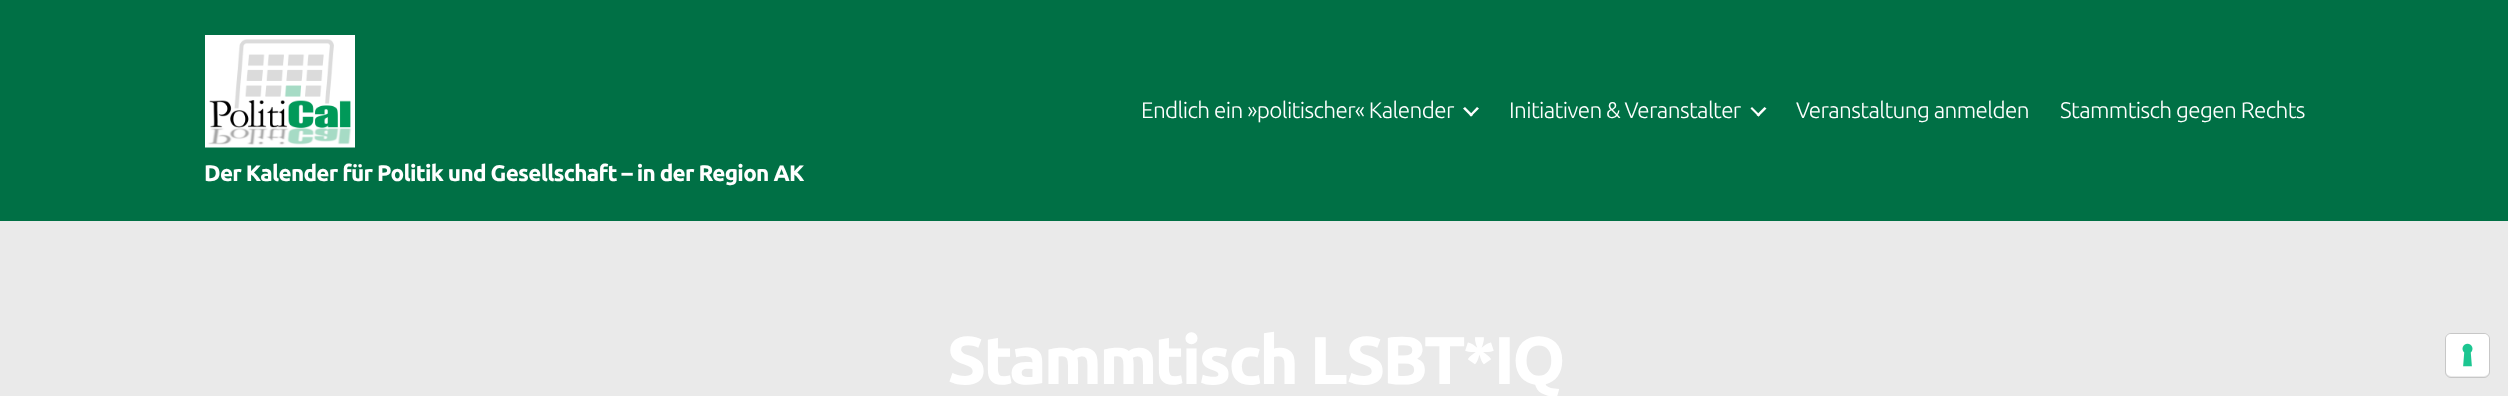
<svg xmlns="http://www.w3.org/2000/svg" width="2508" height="396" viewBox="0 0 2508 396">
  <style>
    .t1 { font: 300 22.5px Ubuntu; letter-spacing: -0.6px; fill: #fff; }
    .t2 { font: bold 22.5px Ubuntu; letter-spacing: -0.7px; fill: #fff; }
    .t3 { font: bold 67.5px Ubuntu; letter-spacing: -2.8px; fill: #fff; }
  </style>
  <rect width="100%" height="100%" fill="#eaeaea"/>
  <rect x="0" y="0" width="2508" height="221" fill="#007045"/>
  <text x="1141" y="118" class="t1">Endlich ein »politischer« Kalender</text>
  <path d="M1463 108.5L1465 107L1473 115L1471 116.5Z" fill="#fff"/>
  <path d="M1469.5 115L1477 107L1479 108.5L1471 116.5Z" fill="#fff"/>
  <text x="1509" y="118" class="t1">Initiativen &amp; Veranstalter</text>
  <path d="M1750.5 108.5L1752 107L1760 115L1758.5 116.5Z" fill="#fff"/>
  <path d="M1756.5 115L1764.5 107L1766.5 108.5L1758.5 116.5Z" fill="#fff"/>
  <text x="1796" y="118" class="t1">Veranstaltung anmelden</text>
  <text x="2060" y="118" class="t1">Stammtisch gegen Rechts</text>
  <image x="205" y="35" width="150" height="113" href="images/1.png"/>
  <text x="204" y="181" class="t2">Der Kalender für Politik und Gesellschaft – in der Region AK</text>
  <text x="947" y="384" class="t3">Stammtisch LSBT*IQ</text>
  <rect x="2445.5" y="333.5" width="44" height="44" rx="5.5" fill="none" stroke="#c7c7c7"/>
  <rect x="2446" y="334" width="43" height="42" rx="5" fill="#fff"/>
  <image x="2462" y="343" width="11" height="24" href="images/2.png"/>
</svg>
